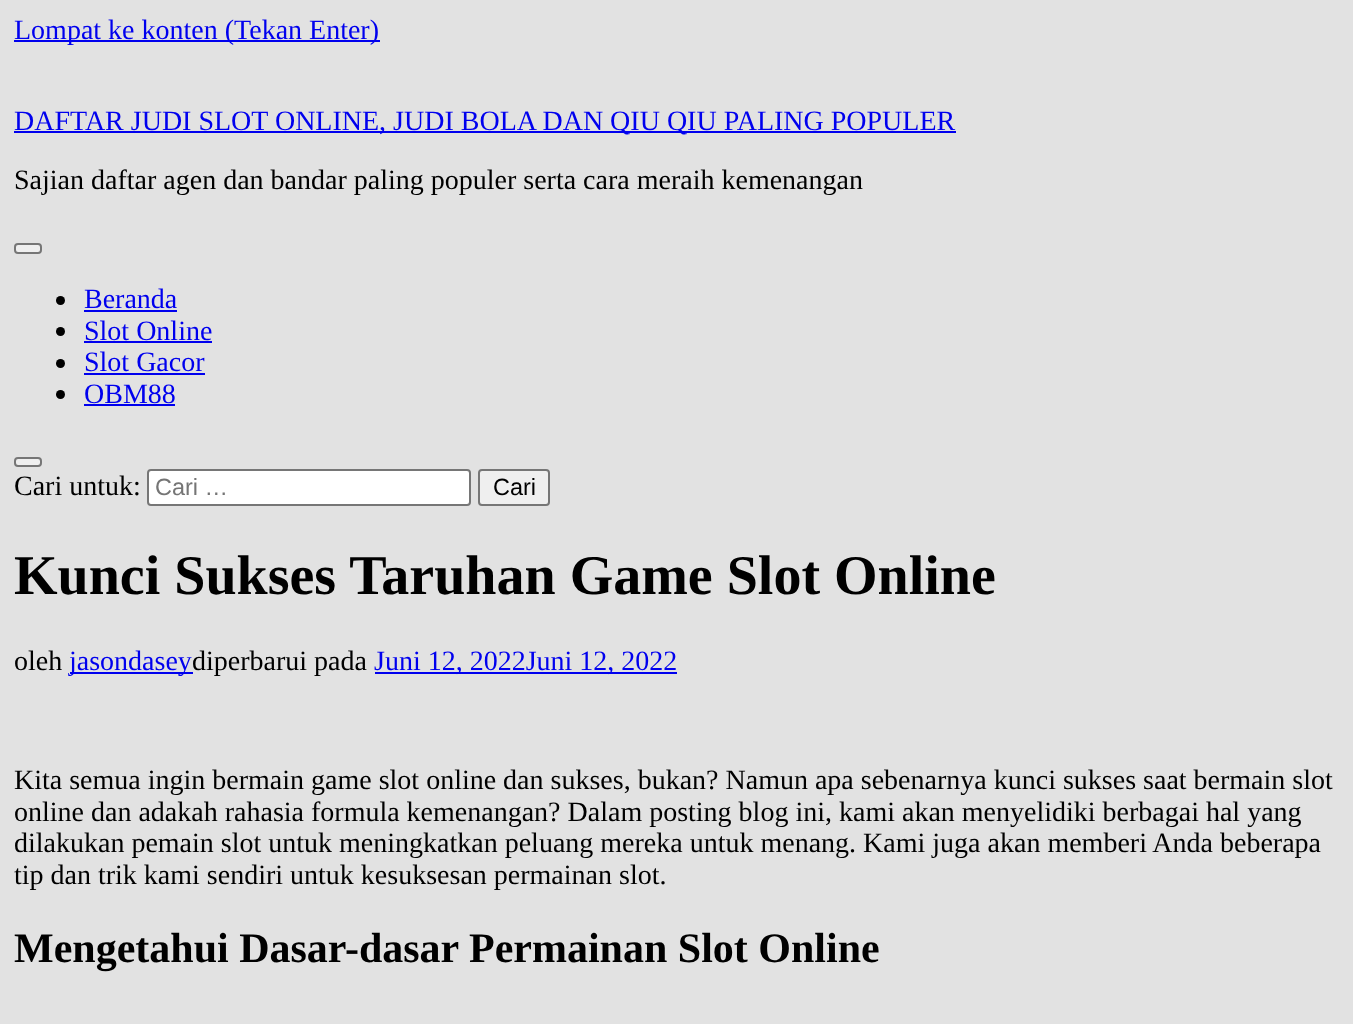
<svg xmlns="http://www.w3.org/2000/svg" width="1353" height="1024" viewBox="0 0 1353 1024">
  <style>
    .t1 { font: 28px Liberation Serif; fill: #00e; }
    .t2 { font: 28px Liberation Serif; fill: #000; }
    .t3 { font: 23.5px Liberation Sans; fill: #757575; }
    .t4 { font: 23.5px Liberation Sans; fill: #000; }
    .t5 { font: bold 56px Liberation Serif; fill: #000; }
    .t6 { font: bold 42px Liberation Serif; fill: #000; }
  </style>
  <rect width="100%" height="100%" fill="#e2e2e2"/>
  <rect x="14" y="40" width="366" height="2" fill="#00e"/>
  <text x="14" y="39" class="t1">Lompat ke konten (Tekan Enter)</text>
  <rect x="14" y="131" width="942" height="2" fill="#00e"/>
  <text x="14" y="130" class="t1">DAFTAR JUDI SLOT ONLINE, JUDI BOLA DAN QIU QIU PALING POPULER</text>
  <text x="14" y="189" class="t2">Sajian daftar agen dan bandar paling populer serta cara meraih kemenangan</text>
  <rect x="15" y="244" width="26" height="9" rx="3" fill="#efefef" stroke="#767676" stroke-width="2"/>
  <circle cx="60.5" cy="300.5" r="4.5" fill="#000"/>
  <text x="84" y="308" class="t1">Beranda</text>
  <rect x="84" y="310" width="93" height="2" fill="#00e"/>
  <circle cx="60.5" cy="331.5" r="4.5" fill="#000"/>
  <text x="84" y="340" class="t1">Slot Online</text>
  <rect x="84" y="341" width="128" height="2" fill="#00e"/>
  <circle cx="60.5" cy="363.5" r="4.5" fill="#000"/>
  <text x="84" y="371" class="t1">Slot Gacor</text>
  <rect x="84" y="373" width="121" height="2" fill="#00e"/>
  <circle cx="60.5" cy="394.5" r="4.5" fill="#000"/>
  <text x="84" y="403" class="t1">OBM88</text>
  <rect x="84" y="404" width="91" height="2" fill="#00e"/>
  <rect x="15" y="458" width="26" height="8" rx="3" fill="#efefef" stroke="#767676" stroke-width="2"/>
  <text x="14" y="495" class="t2">Cari untuk:</text>
  <rect x="148" y="470" width="322" height="35" rx="3" fill="#fff" stroke="#767676" stroke-width="2"/>
  <text x="155" y="495" class="t3">Cari …</text>
  <rect x="479" y="470" width="70" height="35" rx="3" fill="#efefef" stroke="#767676" stroke-width="2"/>
  <text x="493" y="495" class="t4">Cari</text>
  <text x="14" y="594" class="t5">Kunci Sukses Taruhan Game Slot Online</text>
  <text x="14" y="670" class="t2">oleh</text>
  <rect x="70" y="672" width="123" height="2" fill="#00e"/>
  <text x="69" y="670" class="t1">jasondasey</text>
  <text x="192" y="670" class="t2">diperbarui pada</text>
  <rect x="375" y="672" width="302" height="2" fill="#00e"/>
  <text x="374" y="670" class="t1">Juni 12, 2022Juni 12, 2022</text>
  <text x="14" y="789" class="t2">Kita semua ingin bermain game slot online dan sukses, bukan? Namun apa sebenarnya kunci sukses saat bermain slot</text>
  <text x="14" y="821" class="t2">online dan adakah rahasia formula kemenangan? Dalam posting blog ini, kami akan menyelidiki berbagai hal yang</text>
  <text x="14" y="852" class="t2">dilakukan pemain slot untuk meningkatkan peluang mereka untuk menang. Kami juga akan memberi Anda beberapa</text>
  <text x="14" y="884" class="t2">tip dan trik kami sendiri untuk kesuksesan permainan slot.</text>
  <text x="14" y="962" class="t6">Mengetahui Dasar-dasar Permainan Slot Online</text>
</svg>
